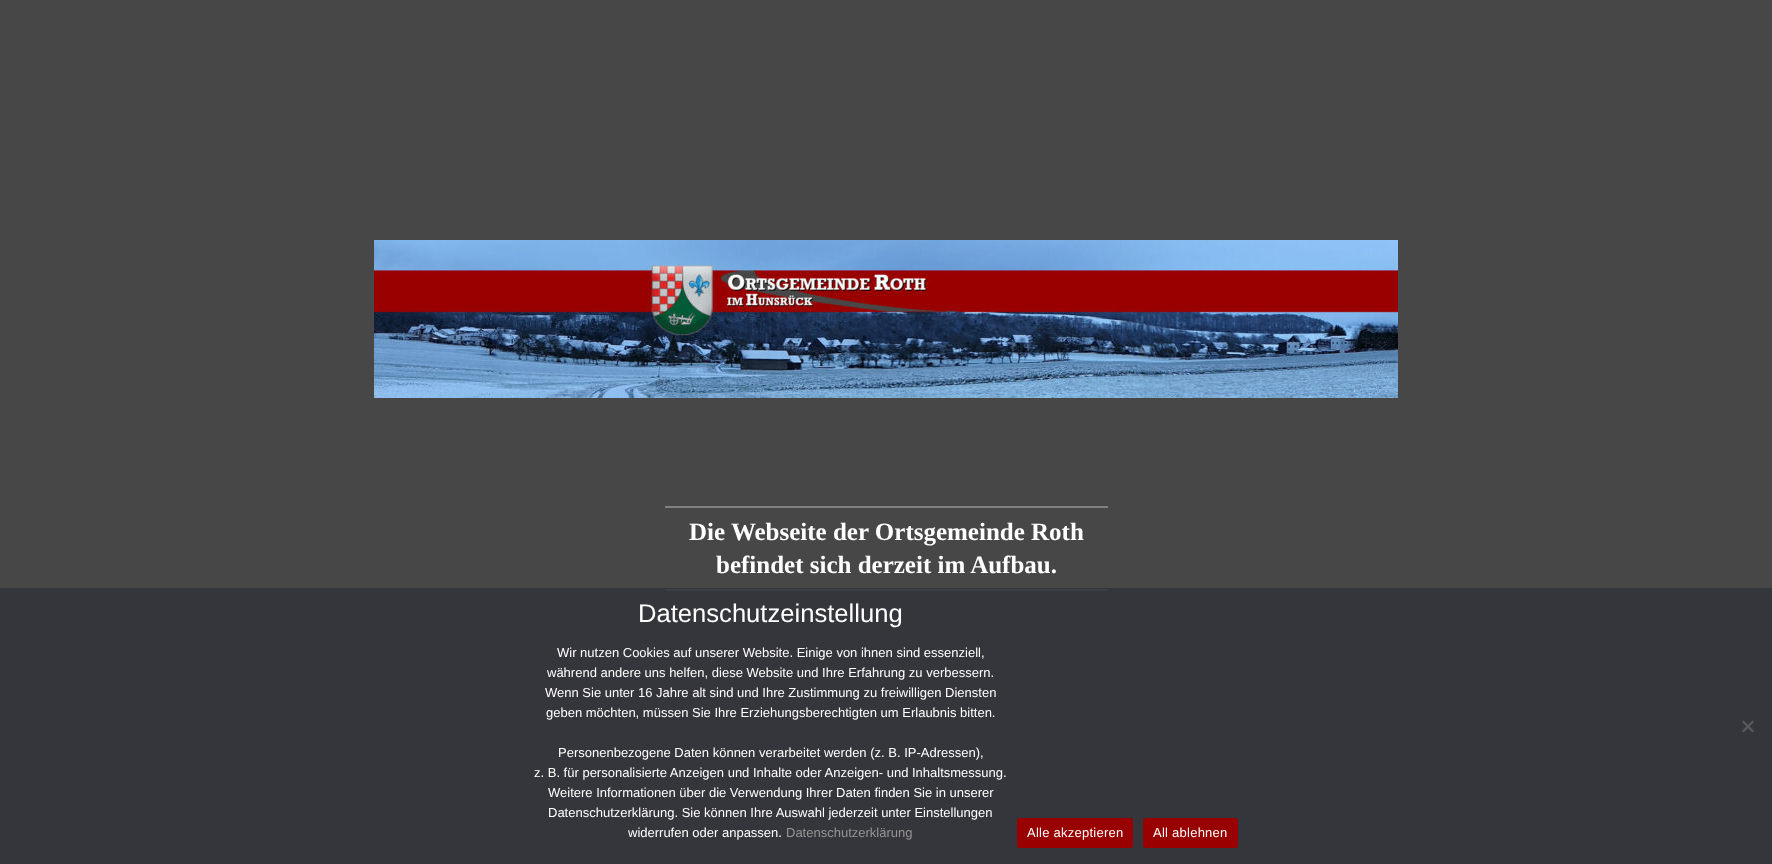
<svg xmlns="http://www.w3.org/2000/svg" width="1772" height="864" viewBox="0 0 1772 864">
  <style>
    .t1 { font: bold 25px Liberation Serif; fill: #fff; }
    .t2 { font: 25.6px Liberation Sans; fill: #fff; }
    .t3 { font: 13px Liberation Sans; fill: #fff; }
    .t4 { font: 13px Liberation Sans; fill: #969696; }
    .t5 { font: 13px Liberation Sans; letter-spacing: 0.25px; fill: #fff; }
  </style>
  <rect width="100%" height="100%" fill="#474747"/>
  <rect x="0" y="588" width="1772" height="276" fill="#35353c"/>
  <image x="374" y="240" width="1024" height="158" href="images/1.png"/>
  <rect x="665" y="506" width="443" height="2" fill="#808080"/>
  <text x="689" y="540" class="t1">Die Webseite der Ortsgemeinde Roth</text>
  <text x="716" y="573" class="t1">befindet sich derzeit im Aufbau.</text>
  <rect x="665" y="589" width="443" height="2" fill="#3e3e45"/>
  <text x="638" y="622" class="t2">Datenschutzeinstellung</text>
  <text x="557" y="657" class="t3">Wir nutzen Cookies auf unserer Website. Einige von ihnen sind essenziell,</text>
  <text x="547" y="677" class="t3">während andere uns helfen, diese Website und Ihre Erfahrung zu verbessern.</text>
  <text x="545" y="697" class="t3">Wenn Sie unter 16 Jahre alt sind und Ihre Zustimmung zu freiwilligen Diensten</text>
  <text x="546" y="717" class="t3">geben möchten, müssen Sie Ihre Erziehungsberechtigten um Erlaubnis bitten.</text>
  <text x="558" y="757" class="t3">Personenbezogene Daten können verarbeitet werden (z. B. IP-Adressen),</text>
  <text x="534" y="777" class="t3">z. B. für personalisierte Anzeigen und Inhalte oder Anzeigen- und Inhaltsmessung.</text>
  <text x="548" y="797" class="t3">Weitere Informationen über die Verwendung Ihrer Daten finden Sie in unserer</text>
  <text x="548" y="817" class="t3">Datenschutzerklärung. Sie können Ihre Auswahl jederzeit unter Einstellungen</text>
  <text x="628" y="837" class="t3">widerrufen oder anpassen.</text>
  <text x="786" y="837" class="t4">Datenschutzerklärung</text>
  <path d="M1752.5 720.5L1754 722L1743.5 732.5L1742 731Z" fill="#5b5b5e"/>
  <path d="M1742 722L1743.5 720.5L1754 731L1752.5 732.5Z" fill="#5b5b5e"/>
  <rect x="1017" y="818" width="116" height="30" rx="3" fill="#900"/>
  <text x="1027" y="837" class="t5">Alle akzeptieren</text>
  <rect x="1143" y="818" width="95" height="30" rx="3" fill="#900"/>
  <text x="1153" y="837" class="t5">All ablehnen</text>
</svg>
